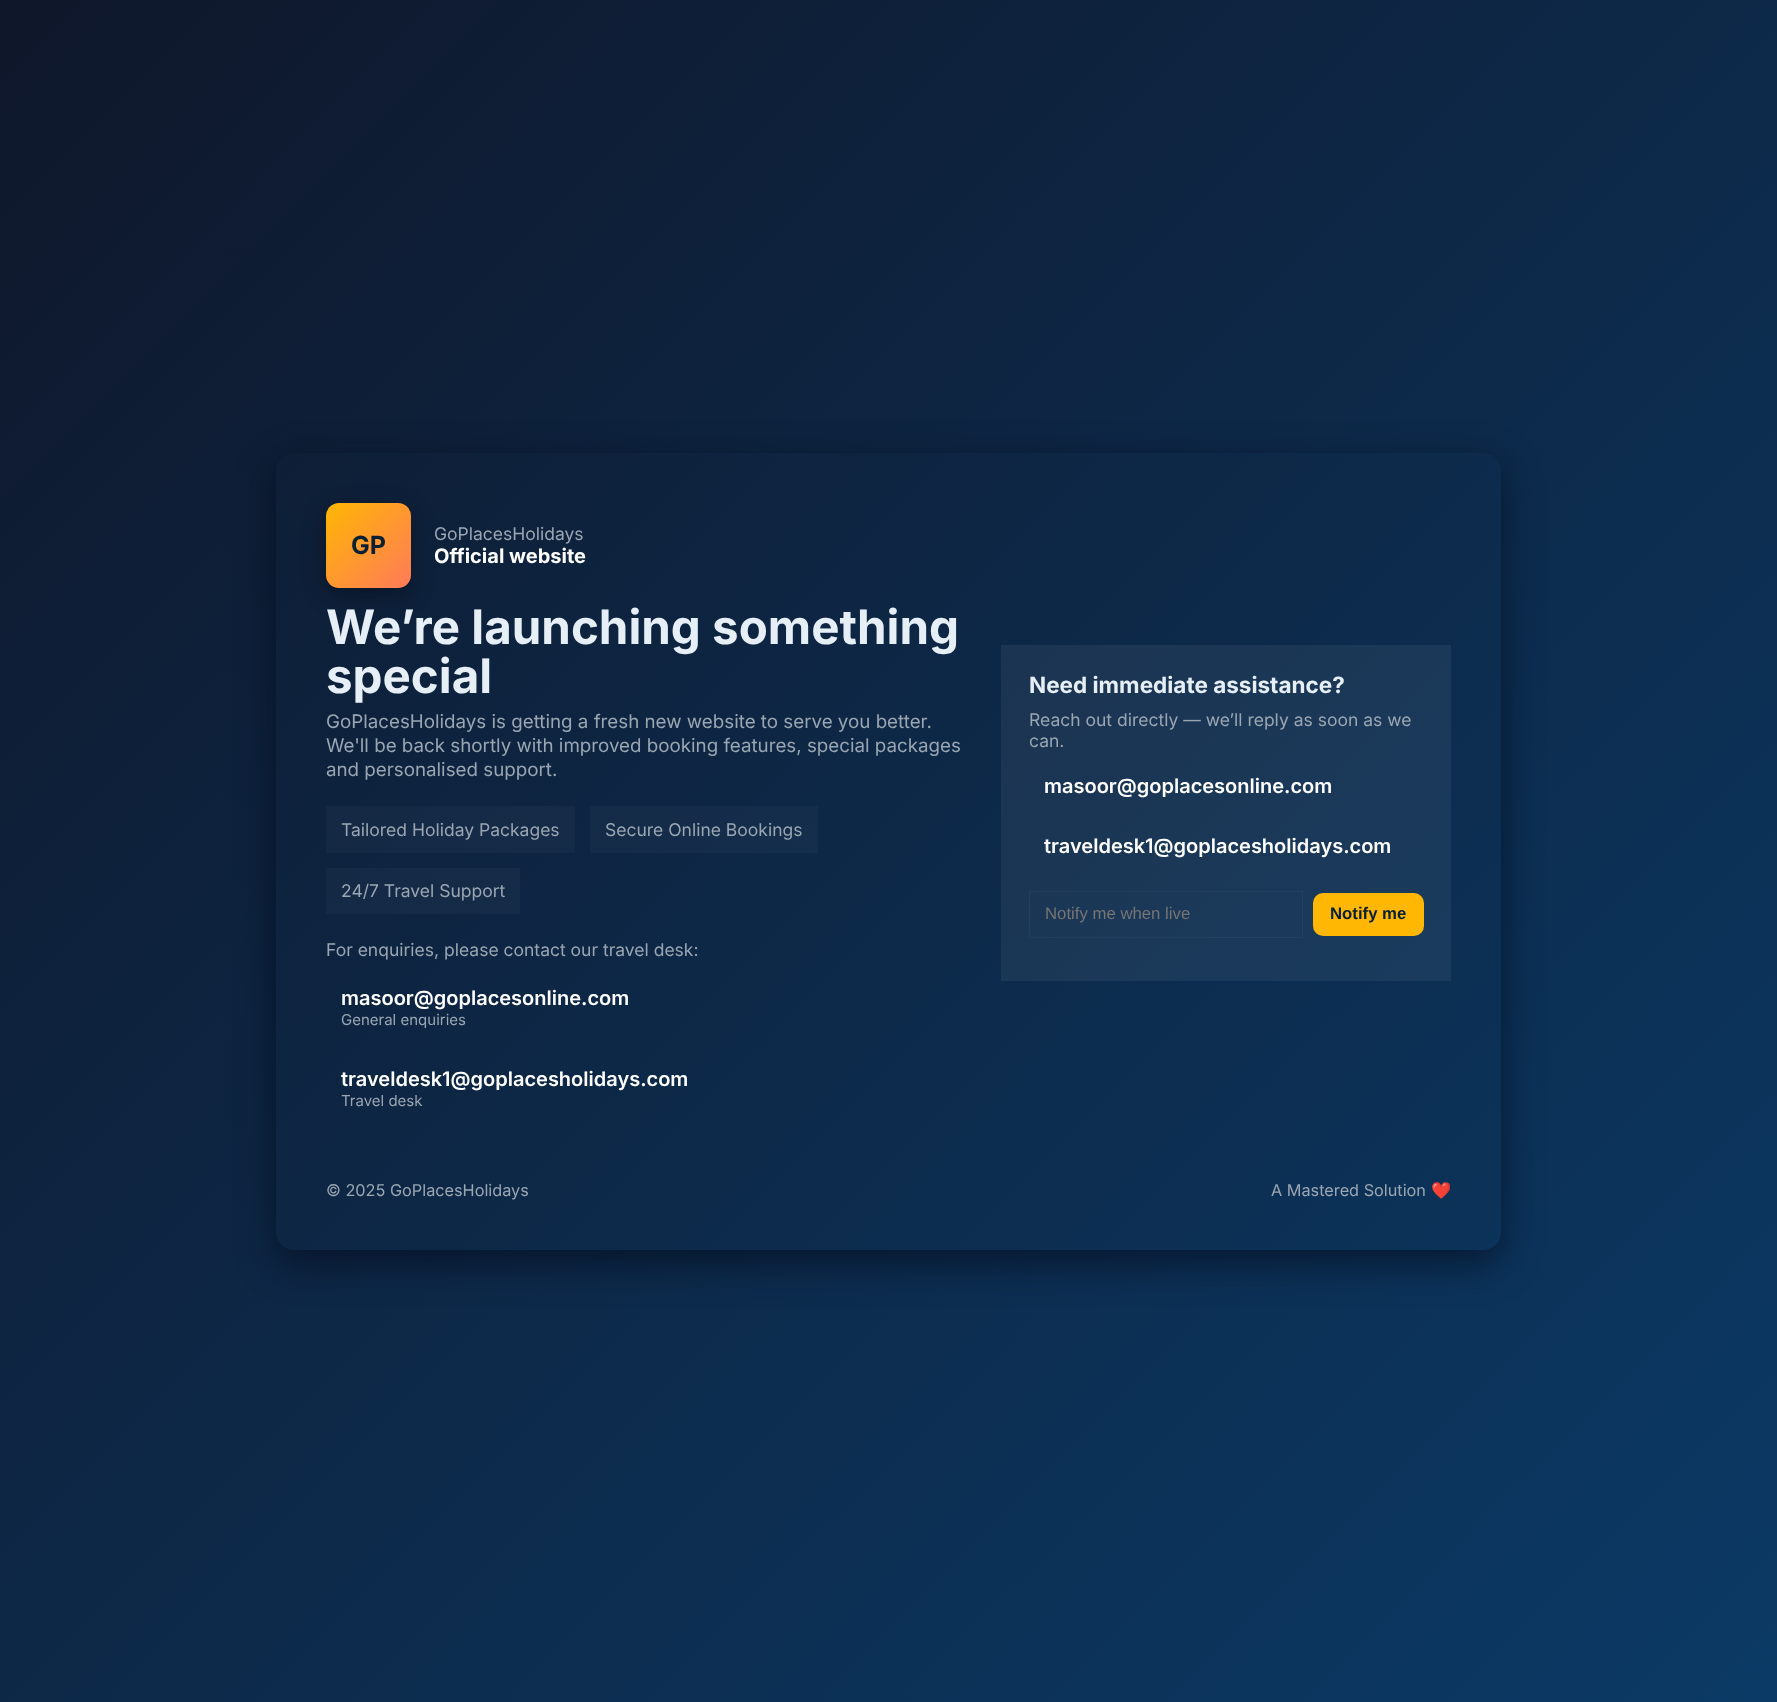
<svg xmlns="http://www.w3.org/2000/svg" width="1777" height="1702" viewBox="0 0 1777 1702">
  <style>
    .t1 { font: bold 25px Inter; fill: #082032; }
    .t2 { font: 17.5px Inter; fill: #9aa6b2; }
    .t3 { font: bold 20px Inter; fill: #fff; }
    .t4 { font: bold 47.5px Inter; fill: #e6eef6; }
    .t5 { font: 18.75px Inter; fill: #9aa6b2; }
    .t6 { font: 600 20px Inter; fill: #fff; }
    .t7 { font: 15px Inter; fill: #9aa6b2; }
    .t8 { font: bold 22.5px Inter; fill: #e6eef6; }
    .t9 { font: 16.75px Liberation Sans; fill: #757575; }
    .t10 { font: bold 16.75px Liberation Sans; fill: #082032; }
    .t11 { font: 16.25px Inter; fill: #9aa6b2; }
    .t12 { font: 16.25px Noto Color Emoji; fill: #9aa6b2; }
  </style>
  <defs>
    <linearGradient id="g1" gradientUnits="userSpaceOnUse" x1="19" y1="-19" x2="1759" y2="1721"><stop offset="0" stop-color="#0f172a"/><stop offset="1" stop-color="#0b3a66"/></linearGradient>
    <clipPath id="clip1"><path d="M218 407H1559V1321H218ZM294 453H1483C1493 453 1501 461 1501 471V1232C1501 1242 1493 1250 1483 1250H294C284 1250 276 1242 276 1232V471C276 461 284 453 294 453Z" clip-rule="evenodd"/></clipPath>
    <linearGradient id="g2" gradientUnits="userSpaceOnUse" x1="326" y1="503" x2="411" y2="588"><stop offset="0" stop-color="#ffb703"/><stop offset="1" stop-color="#ff7a59"/></linearGradient>
  </defs>
  <rect width="100%" height="100%" fill="#fff"/>
  <rect x="0" y="0" width="1777" height="1702" fill="url(#g1)"/>
  <g clip-path="url(#clip1)">
    <rect x="276" y="465" width="1225" height="798" rx="18" fill="#02061799" filter="blur(19px)"/>
  </g>
  <rect x="326" y="510" width="85" height="85" rx="13" fill="#00000059" filter="blur(11px)"/>
  <rect x="326" y="503" width="85" height="85" rx="13" fill="url(#g2)"/>
  <text x="351" y="554" class="t1">GP</text>
  <text x="434" y="540" class="t2">GoPlacesHolidays</text>
  <text x="434" y="563" class="t3">Official website</text>
  <text x="326" y="644" class="t4">We’re launching something</text>
  <text x="326" y="693" class="t4">special</text>
  <text x="326" y="728" class="t5">GoPlacesHolidays is getting a fresh new website to serve you better.</text>
  <text x="326" y="752" class="t5">We'll be back shortly with improved booking features, special packages</text>
  <text x="326" y="776" class="t5">and personalised support.</text>
  <rect x="326" y="806" width="249" height="47" fill="#ffffff08"/>
  <text x="341" y="836" class="t2">Tailored Holiday Packages</text>
  <rect x="590" y="806" width="228" height="47" fill="#ffffff08"/>
  <text x="605" y="836" class="t2">Secure Online Bookings</text>
  <rect x="326" y="868" width="194" height="46" fill="#ffffff08"/>
  <text x="341" y="897" class="t2">24/7 Travel Support</text>
  <text x="326" y="956" class="t2">For enquiries, please contact our travel desk:</text>
  <text x="341" y="1005" class="t6">masoor@goplacesonline.com</text>
  <text x="341" y="1025" class="t7">General enquiries</text>
  <text x="341" y="1086" class="t6">traveldesk1@goplacesholidays.com</text>
  <text x="341" y="1106" class="t7">Travel desk</text>
  <rect x="1001" y="645" width="450" height="336" fill="#ffffff0f"/>
  <text x="1029" y="693" class="t8">Need immediate assistance?</text>
  <text x="1029" y="726" class="t2">Reach out directly — we’ll reply as soon as we</text>
  <text x="1029" y="747" class="t2">can.</text>
  <text x="1044" y="793" class="t6">masoor@goplacesonline.com</text>
  <text x="1044" y="853" class="t6">traveldesk1@goplacesholidays.com</text>
  <rect x="1029.5" y="891.5" width="273" height="46" fill="none" stroke="#ffffff0a"/>
  <text x="1045" y="919" class="t9">Notify me when live</text>
  <rect x="1313" y="893" width="111" height="43" rx="10" fill="#ffb703"/>
  <text x="1330" y="919" class="t10">Notify me</text>
  <text x="326" y="1196" class="t11">© 2025 GoPlacesHolidays</text>
  <text x="1271" y="1196" class="t11">A Mastered Solution</text>
  <text x="1431" y="1196" class="t12">❤️</text>
</svg>
